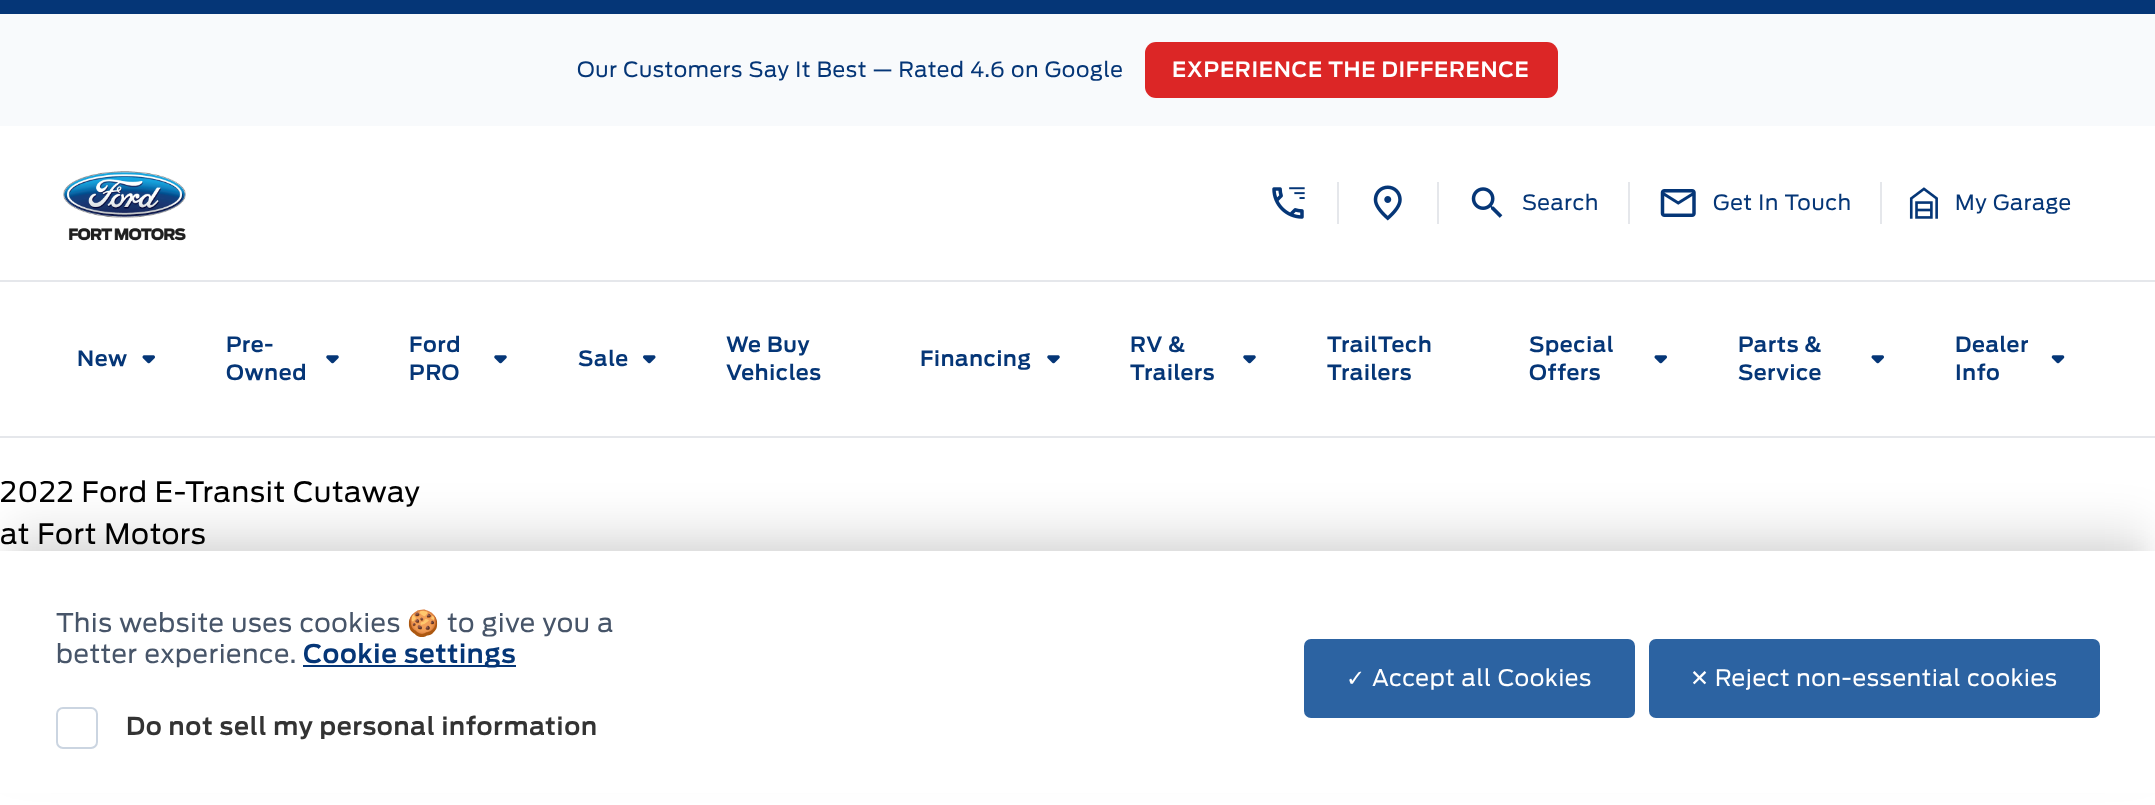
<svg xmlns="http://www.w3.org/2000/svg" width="2155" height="805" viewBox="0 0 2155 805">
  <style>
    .t1 { font: 21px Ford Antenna; letter-spacing: 0.7px; fill: #053677; }
    .t2 { font: 600 21px Ford Antenna; letter-spacing: 0.7px; fill: #fff; }
    .t3 { font: 600 21px Ford Antenna; letter-spacing: 0.7px; fill: #053677; }
    .t4 { font: 28px Ford Antenna; letter-spacing: 0.7px; fill: #000; }
    .t5 { font: 25.7px Ford Antenna; letter-spacing: 0.7px; fill: #475569; }
    .t6 { font: 25.7px Noto Color Emoji; letter-spacing: 0.7px; fill: #475569; }
    .t7 { font: 600 25.7px Ford Antenna; letter-spacing: 0.7px; fill: #053677; }
    .t8 { font: 600 24.5px Ford Antenna; letter-spacing: 0.7px; fill: #333; }
    .t9 { font: 22.75px DejaVu Sans; letter-spacing: 0.7px; fill: #fff; }
    .t10 { font: 22.75px Ford Antenna; letter-spacing: 0.7px; fill: #fff; }
  </style>
  <rect width="100%" height="100%" fill="#fff"/>
  <rect x="0" y="0" width="2155" height="14" fill="#053677"/>
  <rect x="0" y="14" width="2155" height="112" fill="#f8fafc"/>
  <text x="577" y="77" class="t1">Our Customers Say It Best — Rated 4.6 on Google</text>
  <rect x="1145" y="42" width="413" height="56" rx="11" fill="#dc2626"/>
  <text x="1172" y="77" class="t2">EXPERIENCE THE DIFFERENCE</text>
  <rect x="0" y="280" width="2155" height="2" fill="#e5e7eb"/>
  <image x="63" y="171" width="123" height="70" href="images/1.png"/>
  <image x="1272" y="187" width="33" height="32" href="images/2.png"/>
  <rect x="1337" y="182" width="2" height="42" fill="#e5e7eb"/>
  <image x="1373" y="185" width="29" height="36" href="images/3.png"/>
  <rect x="1437" y="182" width="2" height="42" fill="#e5e7eb"/>
  <image x="1471" y="187" width="32" height="31" href="images/4.png"/>
  <text x="1522" y="210" class="t1">Search</text>
  <rect x="1628" y="182" width="2" height="42" fill="#e5e7eb"/>
  <image x="1660" y="189" width="36" height="28" href="images/5.png"/>
  <text x="1713" y="210" class="t1">Get In Touch</text>
  <rect x="1880" y="182" width="2" height="42" fill="#e5e7eb"/>
  <image x="1909" y="187" width="29" height="32" href="images/6.png"/>
  <text x="1955" y="210" class="t1">My Garage</text>
  <rect x="0" y="436" width="2155" height="2" fill="#e5e7eb"/>
  <text x="77" y="366" class="t3">New</text>
  <image x="142" y="355" width="13" height="9" href="images/7.png"/>
  <text x="226" y="352" class="t3">Pre-</text>
  <text x="226" y="380" class="t3">Owned</text>
  <image x="326" y="355" width="13" height="9" href="images/8.png"/>
  <text x="409" y="352" class="t3">Ford</text>
  <text x="409" y="380" class="t3">PRO</text>
  <image x="494" y="355" width="13" height="9" href="images/8.png"/>
  <text x="578" y="366" class="t3">Sale</text>
  <image x="643" y="355" width="13" height="9" href="images/9.png"/>
  <text x="726" y="352" class="t3">We Buy</text>
  <text x="726" y="380" class="t3">Vehicles</text>
  <text x="920" y="366" class="t3">Financing</text>
  <image x="1047" y="355" width="13" height="9" href="images/8.png"/>
  <text x="1130" y="352" class="t3">RV &amp;</text>
  <text x="1130" y="380" class="t3">Trailers</text>
  <image x="1243" y="355" width="13" height="9" href="images/8.png"/>
  <text x="1327" y="352" class="t3">TrailTech</text>
  <text x="1327" y="380" class="t3">Trailers</text>
  <text x="1529" y="352" class="t3">Special</text>
  <text x="1529" y="380" class="t3">Offers</text>
  <image x="1654" y="355" width="13" height="9" href="images/7.png"/>
  <text x="1738" y="352" class="t3">Parts &amp;</text>
  <text x="1738" y="380" class="t3">Service</text>
  <image x="1871" y="355" width="13" height="9" href="images/7.png"/>
  <text x="1955" y="352" class="t3">Dealer</text>
  <text x="1955" y="380" class="t3">Info</text>
  <image x="2051" y="355" width="14" height="9" href="images/10.png"/>
  <text x="0" y="502" class="t4">2022 Ford E-Transit Cutaway</text>
  <text x="0" y="544" class="t4">at Fort Motors</text>
  <rect x="9" y="543" width="2138" height="236" fill="#0000000a" filter="blur(9px)"/>
  <rect x="9" y="525" width="2138" height="236" fill="#0000001a" filter="blur(22px)"/>
  <rect x="0" y="551" width="2155" height="242" fill="#fff"/>
  <text x="56" y="632" class="t5">This website uses cookies</text>
  <text x="407" y="632" class="t6">🍪</text>
  <text x="447" y="632" class="t5">to give you a</text>
  <text x="56" y="663" class="t5">better experience.</text>
  <rect x="303" y="665" width="213" height="2" fill="#053677"/>
  <text x="303" y="663" class="t7">Cookie settings</text>
  <rect x="57" y="708" width="40" height="40" rx="6" fill="none" stroke="#cbd5e1" stroke-width="2"/>
  <text x="126" y="735" class="t8">Do not sell my personal information</text>
  <rect x="1304" y="639" width="331" height="79" rx="7" fill="#2c63a2"/>
  <text x="1346" y="686" class="t9">✓</text>
  <text x="1372" y="686" class="t10">Accept all Cookies</text>
  <rect x="1649" y="639" width="451" height="79" rx="7" fill="#2c63a2"/>
  <text x="1690" y="686" class="t9">✕</text>
  <text x="1715" y="686" class="t10">Reject non-essential cookies</text>
</svg>
